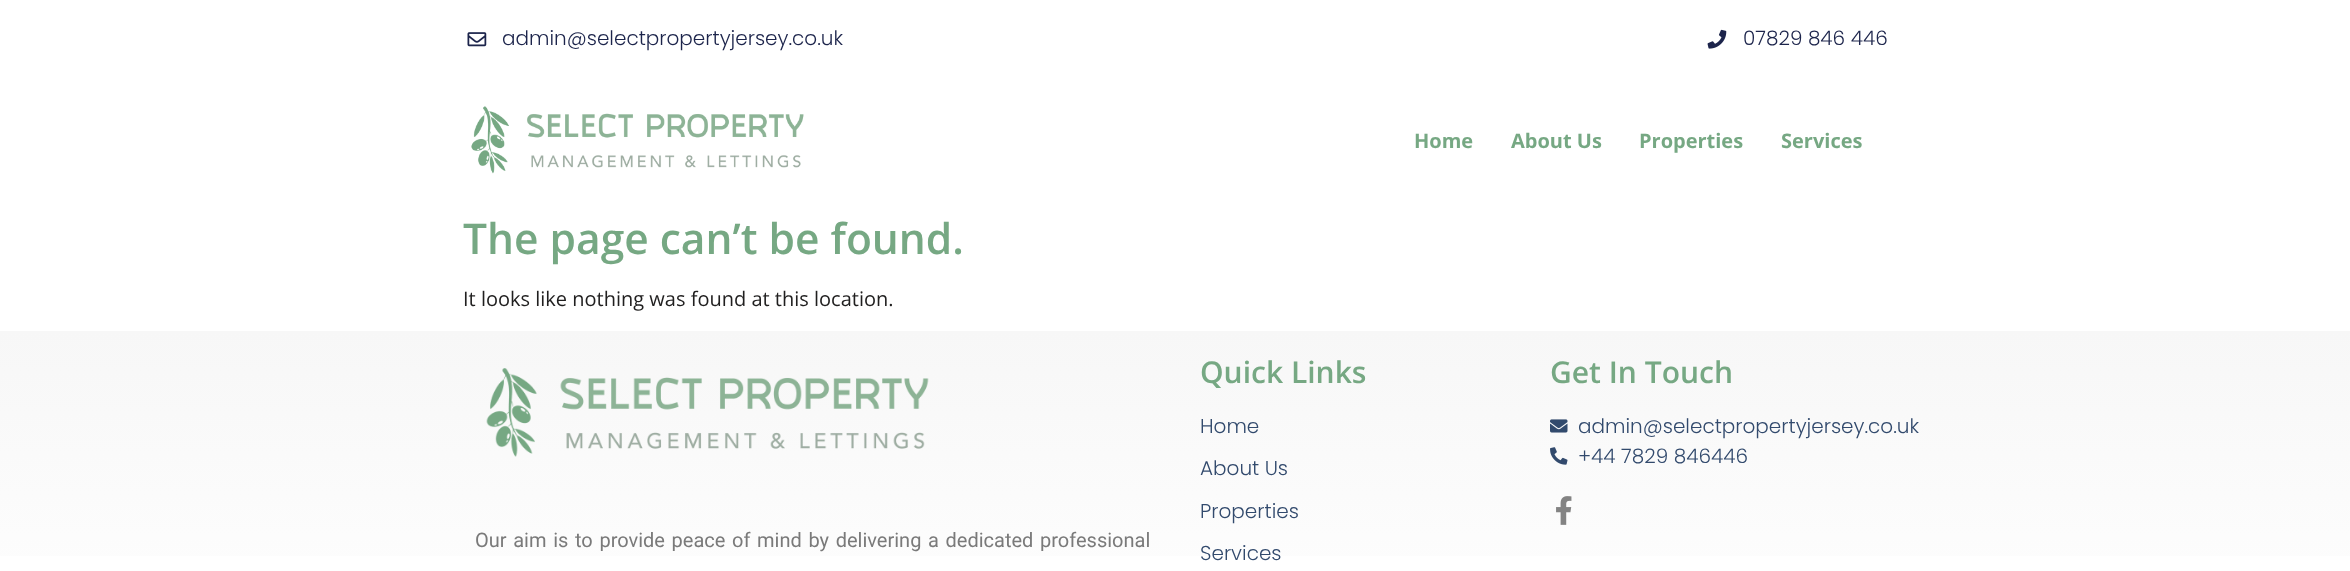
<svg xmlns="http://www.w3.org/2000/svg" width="2350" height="571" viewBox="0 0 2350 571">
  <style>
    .t1 { font: 300 20px Poppins; fill: #1c244b; }
    .t2 { font: bold 20px Open Sans; fill: #76a883; }
    .t3 { font: 600 42.5px Open Sans; fill: #76a883; }
    .t4 { font: 20px Open Sans; fill: #201f1f; }
    .t5 { font: 600 30px Open Sans; fill: #76a883; }
    .t6 { font: 300 20px Poppins; fill: #324a6d; }
    .t7 { font: 20px Roboto; fill: #7a7a7a; }
  </style>
  <defs>
    <linearGradient id="g1" gradientUnits="userSpaceOnUse" x1="1175" y1="331" x2="1175" y2="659"><stop offset="0" stop-color="#f7f7f7"/><stop offset="1" stop-color="#fff"/></linearGradient>
  </defs>
  <rect width="100%" height="100%" fill="#fff"/>
  <image x="467" y="32" width="20" height="15" href="images/1.png"/>
  <text x="502" y="45" class="t1">admin@selectpropertyjersey.co.uk</text>
  <image x="1707" y="29" width="20" height="20" href="images/2.png"/>
  <text x="1743" y="45" class="t1">07829 846 446</text>
  <image x="471" y="106" width="333" height="68" href="images/3.png"/>
  <text x="1414" y="148" class="t2">Home</text>
  <text x="1511" y="148" class="t2">About Us</text>
  <text x="1639" y="148" class="t2">Properties</text>
  <text x="1781" y="148" class="t2">Services</text>
  <text x="463" y="254" class="t3">The page can’t be found.</text>
  <text x="463" y="306" class="t4">It looks like nothing was found at this location.</text>
  <rect x="0" y="331" width="2350" height="225" fill="url(#g1)"/>
  <text x="1200" y="383" class="t5">Quick Links</text>
  <text x="1200" y="433" class="t6">Home</text>
  <text x="1200" y="475" class="t6">About Us</text>
  <text x="1200" y="518" class="t6">Properties</text>
  <text x="1200" y="560" class="t6">Services</text>
  <text x="1550" y="383" class="t5">Get In Touch</text>
  <image x="1550" y="419" width="18" height="14" href="images/4.png"/>
  <text x="1578" y="433" class="t6">admin@selectpropertyjersey.co.uk</text>
  <image x="1550" y="447" width="18" height="18" href="images/5.png"/>
  <text x="1578" y="463" class="t6">+44 7829 846446</text>
  <image x="1556" y="496" width="16" height="29" href="images/6.png"/>
  <image x="486" y="368" width="443" height="89" href="images/7.png"/>
  <text x="475" y="547" word-spacing="1.7" class="t7">Our aim is to provide peace of mind by delivering a dedicated professional</text>
</svg>
